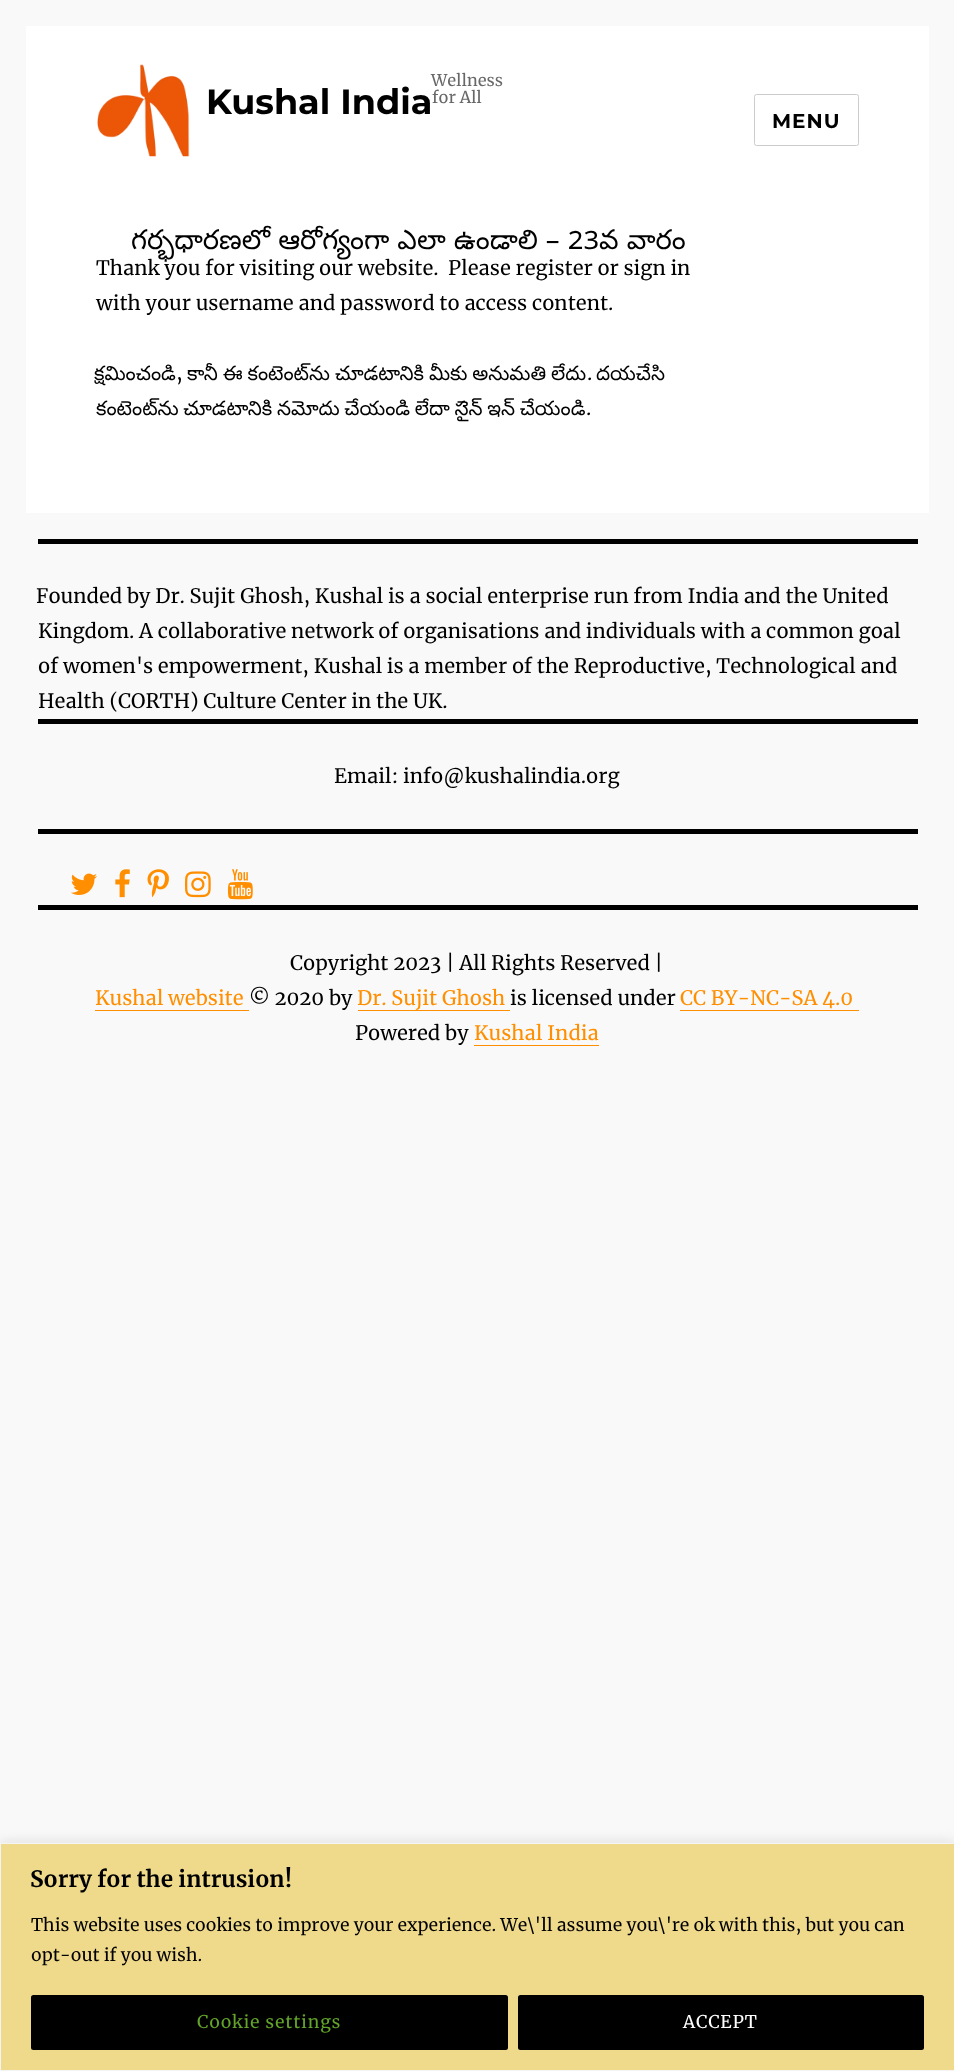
<svg xmlns="http://www.w3.org/2000/svg" width="954" height="2071" viewBox="0 0 954 2071">
  <style>
    .t1 { font: 100 35px Montserrat; fill: #000; }
    .t2 { font: 16.25px Merriweather; fill: #686868; }
    .t3 { font: 100 20px Montserrat; letter-spacing: 1px; fill: #000; }
    .t4 { font: 27.5px Noto Sans Telugu; fill: #000; }
    .t5 { font: 20px Merriweather; fill: #000; }
    .t6 { font: 20px Noto Sans Telugu; fill: #000; }
    .t7 { font: 20px Merriweather; fill: #ff8f00; }
    .t8 { font: bold 22.5px Merriweather; fill: #000; }
    .t9 { font: 17.5px Merriweather; fill: #000; }
    .t10 { font: 17.5px Merriweather; letter-spacing: 0.8px; fill: #62a329; }
    .t11 { font: 17.5px Merriweather; letter-spacing: 0.8px; fill: #fff; }
  </style>
  <rect width="100%" height="100%" fill="#f9f9f9"/>
  <rect x="26" y="26" width="903" height="487" fill="#fff"/>
  <image x="97" y="64" width="93" height="93" href="images/1.png"/>
  <text x="206" y="114" class="t1">Kushal India</text>
  <text x="431" y="86" class="t2">Wellness</text>
  <text x="432" y="103" class="t2">for All</text>
  <rect x="754.5" y="94.5" width="104" height="51" rx="2" fill="none" stroke="#ccc"/>
  <text x="772" y="128" class="t3">MENU</text>
  <text x="131" y="249" word-spacing="0.25" class="t4">గర్భధారణలో ఆరోగ్యంగా ఎలా ఉండాలి – 23వ వారం</text>
  <text x="96" y="275" class="t5" xml:space="preserve">Thank you for visiting our website.  Please register or sign in</text>
  <text x="96" y="310" class="t5">with your username and password to access content.</text>
  <text x="94" y="380" class="t6">క్షమించండి</text>
  <text x="176" y="380" class="t5">,</text>
  <text x="187" y="380" word-spacing="-0.75" class="t6">కానీ ఈ కంటెంట్‌ను చూడటానికి మీకు అనుమతి లేదు</text>
  <text x="587" y="380" class="t5">.</text>
  <text x="596" y="380" class="t6">దయచేసి</text>
  <text x="96" y="415" word-spacing="-1" class="t6">కంటెంట్‌ను చూడటానికి నమోదు చేయండి లేదా సైన్ ఇన్ చేయండి</text>
  <text x="586" y="415" class="t5">.</text>
  <rect x="38" y="539" width="880" height="5" fill="#000"/>
  <text x="36" y="603" class="t5">Founded by Dr. Sujit Ghosh, Kushal is a social enterprise run from India and the United</text>
  <text x="38" y="638" class="t5">Kingdom. A collaborative network of organisations and individuals with a common goal</text>
  <text x="38" y="673" class="t5">of women's empowerment, Kushal is a member of the Reproductive, Technological and</text>
  <text x="38" y="708" class="t5">Health (CORTH) Culture Center in the UK.</text>
  <rect x="38" y="719" width="880" height="5" fill="#000"/>
  <text x="334" y="783" class="t5">Email: info@kushalindia.org</text>
  <rect x="38" y="829" width="880" height="5" fill="#000"/>
  <image x="71" y="873" width="26" height="22" href="images/2.png"/>
  <image x="115" y="869" width="15" height="29" href="images/3.png"/>
  <image x="147" y="869" width="22" height="29" href="images/4.png"/>
  <image x="185" y="871" width="26" height="27" href="images/5.png"/>
  <image x="227" y="869" width="26" height="31" href="images/6.png"/>
  <rect x="38" y="905" width="880" height="5" fill="#000"/>
  <text x="290" y="970" class="t5">Copyright 2023 | All Rights Reserved |</text>
  <text x="95" y="1005" class="t7">Kushal website</text>
  <path d="M95 1010V1011H249V986V1010Z" fill="#ff8f00"/>
  <text x="249" y="1005" class="t5">© 2020 by</text>
  <text x="357" y="1005" class="t7">Dr. Sujit Ghosh</text>
  <rect x="358" y="1010" width="152" height="1" fill="#ff8f00"/>
  <text x="510" y="1005" class="t5">is licensed under</text>
  <text x="680" y="1005" class="t7">CC BY-NC-SA 4.0</text>
  <path d="M680 1010V1011H859V986V1010Z" fill="#ff8f00"/>
  <text x="355" y="1040" class="t5">Powered by</text>
  <text x="474" y="1040" class="t7">Kushal India</text>
  <path d="M474 1045V1046H599V1021V1045Z" fill="#ff8f00"/>
  <rect x="0" y="1841" width="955" height="229" fill="#acabab4d" filter="blur(6px)"/>
  <rect x="0.5" y="1843.5" width="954" height="227" fill="#efda8c" stroke="#f4f4f4"/>
  <text x="30" y="1887" class="t8">Sorry for the intrusion!</text>
  <text x="31" y="1931" class="t9">This website uses cookies to improve your experience. We\'ll assume you\'re ok with this, but you can</text>
  <text x="31" y="1961" class="t9">opt-out if you wish.</text>
  <rect x="32.5" y="1996.5" width="474" height="52" rx="1" fill="#000" stroke="#000" stroke-width="3"/>
  <text x="197" y="2028" class="t10">Cookie settings</text>
  <rect x="519.5" y="1996.5" width="403" height="52" rx="1" fill="#000" stroke="#000" stroke-width="3"/>
  <text x="683" y="2028" class="t11">ACCEPT</text>
</svg>
